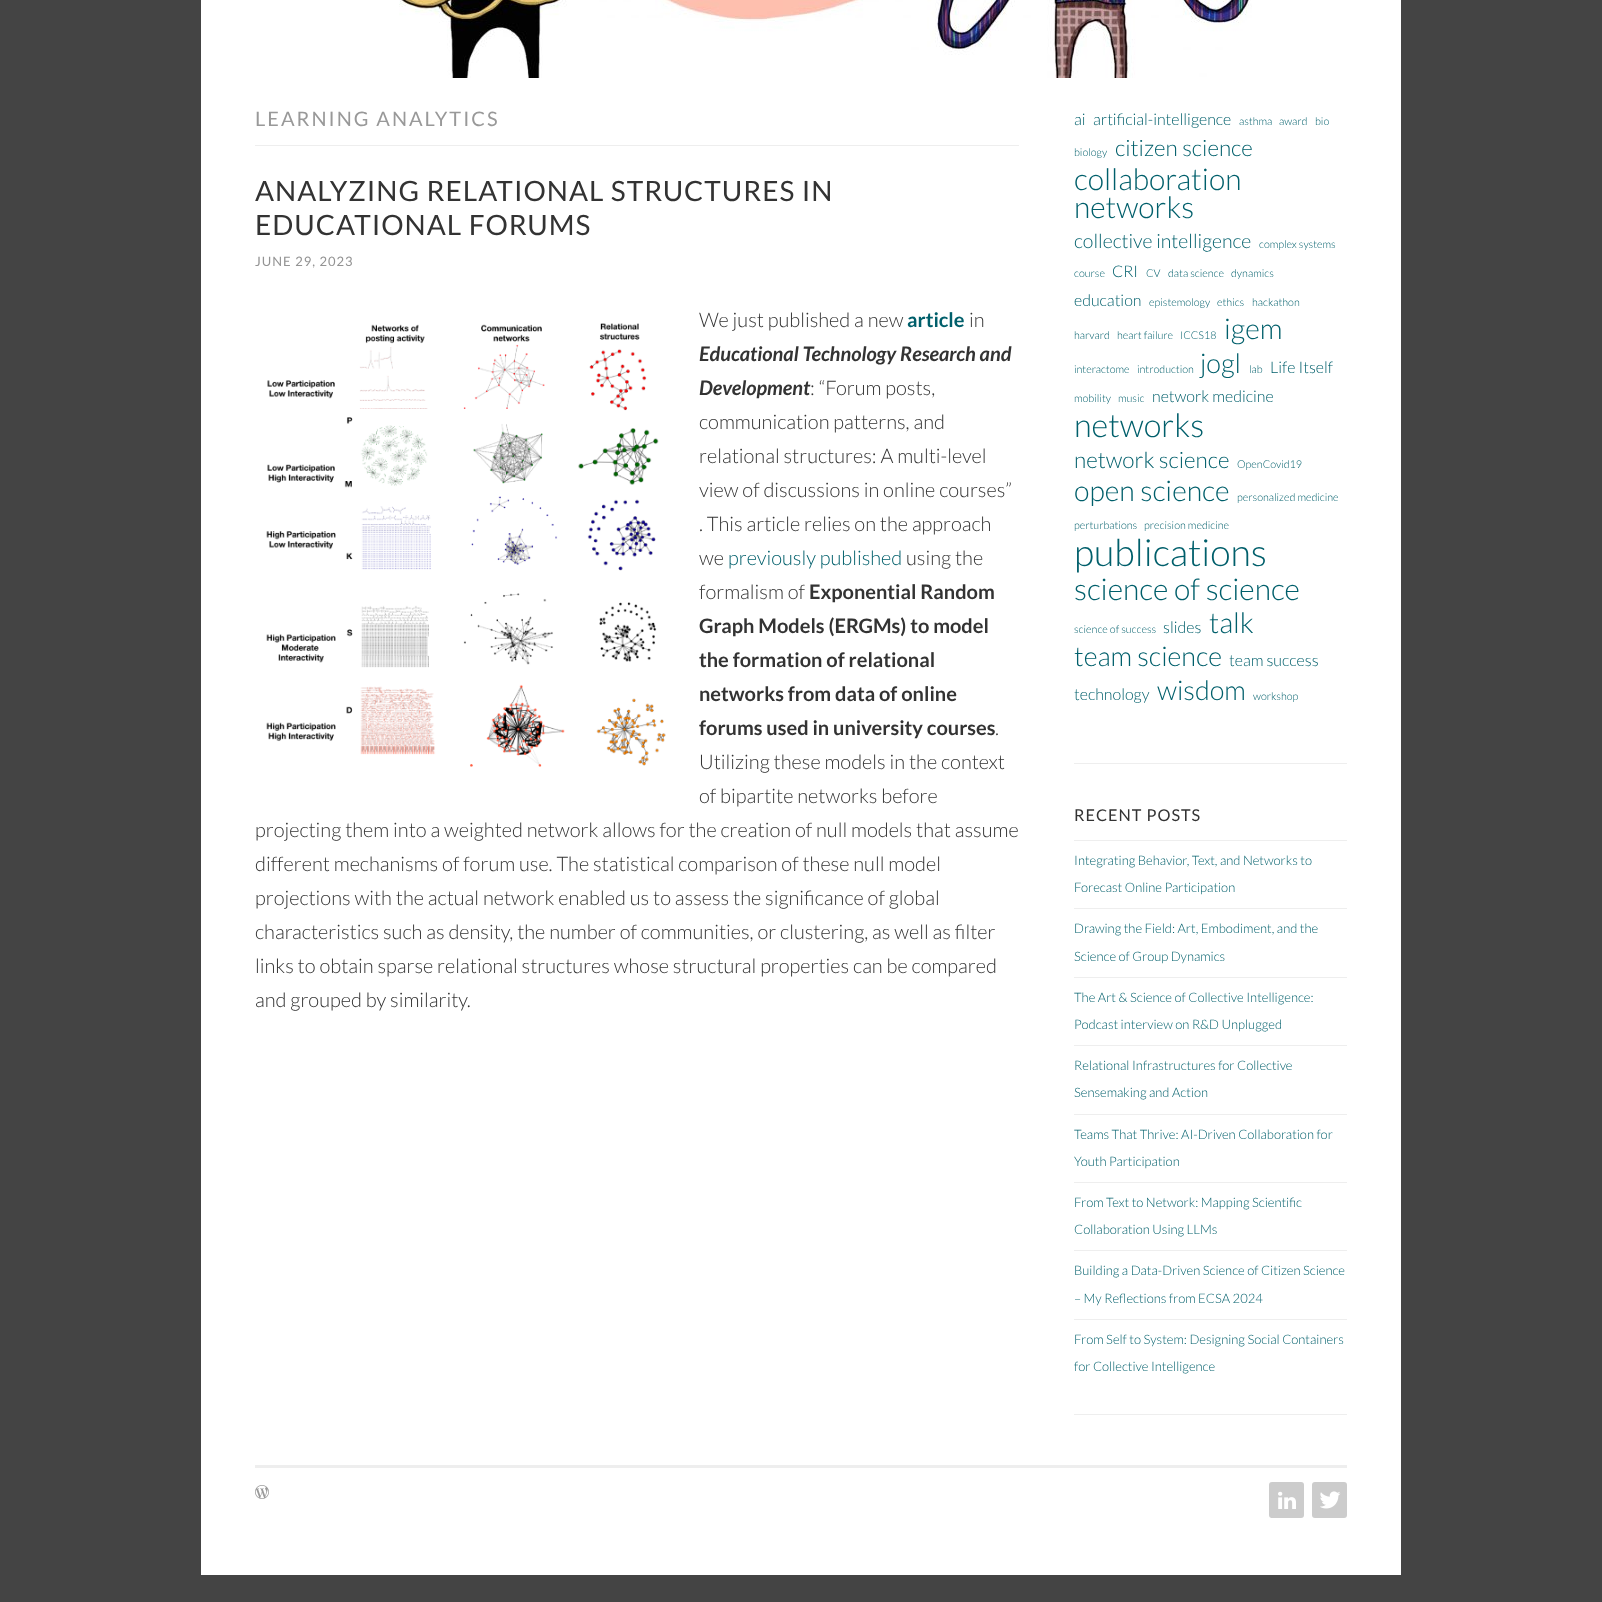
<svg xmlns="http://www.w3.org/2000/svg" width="1602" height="1602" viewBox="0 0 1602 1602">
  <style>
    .t1 { font: 20px Lato; letter-spacing: 2px; fill: #999; }
    .t2 { font: 28px Lato; letter-spacing: 1px; fill: #333; }
    .t3 { font: 13px Lato; letter-spacing: 1px; fill: #939393; }
    .t4 { font: 300 20px Lato; fill: #333; }
    .t5 { font: bold 20px Lato; fill: #005f6b; }
    .t6 { font: italic bold 20px Lato; fill: #333; }
    .t7 { font: 300 20px Lato; fill: #005f6b; }
    .t8 { font: bold 20px Lato; fill: #333; }
    .t9 { font: 300 16px Lato; fill: #005f6b; }
    .t10 { font: 300 10.75px Lato; fill: #005f6b; }
    .t11 { font: 300 22.5px Lato; fill: #005f6b; }
    .t12 { font: 300 30px Lato; fill: #005f6b; }
    .t13 { font: 300 19.5px Lato; fill: #005f6b; }
    .t14 { font: 300 28.5px Lato; fill: #005f6b; }
    .t15 { font: 300 27px Lato; fill: #005f6b; }
    .t16 { font: 300 32.5px Lato; fill: #005f6b; }
    .t17 { font: 300 37.5px Lato; fill: #005f6b; }
    .t18 { font: 16.25px Lato; letter-spacing: 1px; fill: #333; }
    .t19 { font: 300 13px Lato; fill: #005f6b; }
  </style>
  <rect width="100%" height="100%" fill="#444"/>
  <rect x="201" y="0" width="1200" height="1575" fill="#fff"/>
  <image x="399" y="0" width="853" height="78" href="images/1.png"/>
  <rect x="255" y="145" width="764" height="1" fill="#eee"/>
  <text x="255" y="126" class="t1">LEARNING ANALYTICS</text>
  <text x="255" y="201" class="t2">ANALYZING RELATIONAL STRUCTURES IN</text>
  <text x="255" y="235" class="t2">EDUCATIONAL FORUMS</text>
  <text x="255" y="266" class="t3">JUNE 29, 2023</text>
  <text x="699" y="327" class="t4">We just published a new</text>
  <text x="907" y="327" class="t5">article</text>
  <text x="969" y="327" class="t4">in</text>
  <text x="699" y="361" class="t6">Educational Technology Research and</text>
  <text x="699" y="395" class="t6">Development</text>
  <text x="810" y="395" class="t4">: “Forum posts,</text>
  <text x="699" y="429" class="t4">communication patterns, and</text>
  <text x="699" y="463" class="t4">relational structures: A multi-level</text>
  <text x="699" y="497" class="t4">view of discussions in online courses”</text>
  <text x="699" y="531" class="t4">. This article relies on the approach</text>
  <text x="699" y="565" class="t4">we</text>
  <text x="728" y="565" class="t7">previously published</text>
  <text x="906" y="565" class="t4">using the</text>
  <text x="699" y="599" class="t4">formalism of</text>
  <text x="809" y="599" class="t8">Exponential Random</text>
  <text x="699" y="633" class="t8">Graph Models (ERGMs) to model</text>
  <text x="699" y="667" class="t8">the formation of relational</text>
  <text x="699" y="701" class="t8">networks from data of online</text>
  <text x="699" y="735" class="t8">forums used in university courses</text>
  <text x="995" y="735" class="t4">.</text>
  <text x="699" y="769" class="t4">Utilizing these models in the context</text>
  <text x="699" y="803" class="t4">of bipartite networks before</text>
  <text x="255" y="837" class="t4">projecting them into a weighted network allows for the creation of null models that assume</text>
  <text x="255" y="871" class="t4">different mechanisms of forum use. The statistical comparison of these null model</text>
  <text x="255" y="905" class="t4">projections with the actual network enabled us to assess the significance of global</text>
  <text x="255" y="939" class="t4">characteristics such as density, the number of communities, or clustering, as well as filter</text>
  <text x="255" y="973" class="t4">links to obtain sparse relational structures whose structural properties can be compared</text>
  <text x="255" y="1007" class="t4">and grouped by similarity.</text>
  <image x="266" y="323" width="400" height="444" href="images/2.png"/>
  <rect x="1074" y="763" width="273" height="1" fill="#eee"/>
  <text x="1074" y="125" class="t9">ai</text>
  <text x="1093" y="125" class="t9">artificial-intelligence</text>
  <text x="1239" y="125" class="t10">asthma</text>
  <text x="1279" y="125" class="t10">award</text>
  <text x="1315" y="125" class="t10">bio</text>
  <text x="1074" y="156" class="t10">biology</text>
  <text x="1115" y="156" class="t11">citizen science</text>
  <text x="1074" y="190" class="t12">collaboration</text>
  <text x="1074" y="218" class="t12">networks</text>
  <text x="1074" y="248" class="t13">collective intelligence</text>
  <text x="1259" y="248" class="t10">complex systems</text>
  <text x="1074" y="277" class="t10">course</text>
  <text x="1112" y="277" class="t9">CRI</text>
  <text x="1146" y="277" class="t10">CV</text>
  <text x="1168" y="277" class="t10">data science</text>
  <text x="1231" y="277" class="t10">dynamics</text>
  <text x="1074" y="306" class="t9">education</text>
  <text x="1149" y="306" class="t10">epistemology</text>
  <text x="1217" y="306" class="t10">ethics</text>
  <text x="1252" y="306" class="t10">hackathon</text>
  <text x="1074" y="339" class="t10">harvard</text>
  <text x="1117" y="339" class="t10">heart failure</text>
  <text x="1180" y="339" class="t10">ICCS18</text>
  <text x="1224" y="339" class="t14">igem</text>
  <text x="1074" y="373" class="t10">interactome</text>
  <text x="1137" y="373" class="t10">introduction</text>
  <text x="1200" y="373" class="t15">jogl</text>
  <text x="1249" y="373" class="t10">lab</text>
  <text x="1270" y="373" class="t9">Life Itself</text>
  <text x="1074" y="402" class="t10">mobility</text>
  <text x="1118" y="402" class="t10">music</text>
  <text x="1152" y="402" class="t9">network medicine</text>
  <text x="1074" y="437" class="t16">networks</text>
  <text x="1074" y="468" class="t11">network science</text>
  <text x="1237" y="468" class="t10">OpenCovid19</text>
  <text x="1074" y="501" class="t14">open science</text>
  <text x="1237" y="501" class="t10">personalized medicine</text>
  <text x="1074" y="529" class="t10">perturbations</text>
  <text x="1144" y="529" class="t10">precision medicine</text>
  <text x="1074" y="566" class="t17">publications</text>
  <text x="1074" y="600" class="t12">science of science</text>
  <text x="1074" y="633" class="t10">science of success</text>
  <text x="1163" y="633" class="t9">slides</text>
  <text x="1209" y="633" class="t14">talk</text>
  <text x="1074" y="666" class="t15">team science</text>
  <text x="1229" y="666" class="t9">team success</text>
  <text x="1074" y="700" class="t9">technology</text>
  <text x="1157" y="700" class="t15">wisdom</text>
  <text x="1253" y="700" class="t10">workshop</text>
  <rect x="1074" y="1414" width="273" height="1" fill="#eee"/>
  <text x="1074" y="821" class="t18">RECENT POSTS</text>
  <rect x="1074" y="840" width="273" height="1" fill="#eee"/>
  <text x="1074" y="865" class="t19">Integrating Behavior, Text, and Networks to</text>
  <text x="1074" y="892" class="t19">Forecast Online Participation</text>
  <rect x="1074" y="908" width="273" height="1" fill="#eee"/>
  <text x="1074" y="933" class="t19">Drawing the Field: Art, Embodiment, and the</text>
  <text x="1074" y="961" class="t19">Science of Group Dynamics</text>
  <rect x="1074" y="977" width="273" height="1" fill="#eee"/>
  <text x="1074" y="1002" class="t19">The Art &amp; Science of Collective Intelligence:</text>
  <text x="1074" y="1029" class="t19">Podcast interview on R&amp;D Unplugged</text>
  <rect x="1074" y="1045" width="273" height="1" fill="#eee"/>
  <text x="1074" y="1070" class="t19">Relational Infrastructures for Collective</text>
  <text x="1074" y="1097" class="t19">Sensemaking and Action</text>
  <rect x="1074" y="1114" width="273" height="1" fill="#eee"/>
  <text x="1074" y="1139" class="t19">Teams That Thrive: AI-Driven Collaboration for</text>
  <text x="1074" y="1166" class="t19">Youth Participation</text>
  <rect x="1074" y="1182" width="273" height="1" fill="#eee"/>
  <text x="1074" y="1207" class="t19">From Text to Network: Mapping Scientific</text>
  <text x="1074" y="1234" class="t19">Collaboration Using LLMs</text>
  <rect x="1074" y="1250" width="273" height="1" fill="#eee"/>
  <text x="1074" y="1275" class="t19">Building a Data-Driven Science of Citizen Science</text>
  <text x="1074" y="1303" class="t19">– My Reflections from ECSA 2024</text>
  <rect x="1074" y="1319" width="273" height="1" fill="#eee"/>
  <text x="1074" y="1344" class="t19">From Self to System: Designing Social Containers</text>
  <text x="1074" y="1371" class="t19">for Collective Intelligence</text>
  <rect x="255" y="1465" width="1092" height="3" fill="#eee"/>
  <image x="255" y="1485" width="14" height="14" href="images/3.png"/>
  <rect x="1269" y="1482" width="35" height="36" rx="3" fill="#ccc"/>
  <image x="1278" y="1491" width="18" height="18" href="images/4.png"/>
  <rect x="1312" y="1482" width="35" height="36" rx="3" fill="#ccc"/>
  <image x="1320" y="1491" width="21" height="18" href="images/5.png"/>
</svg>
